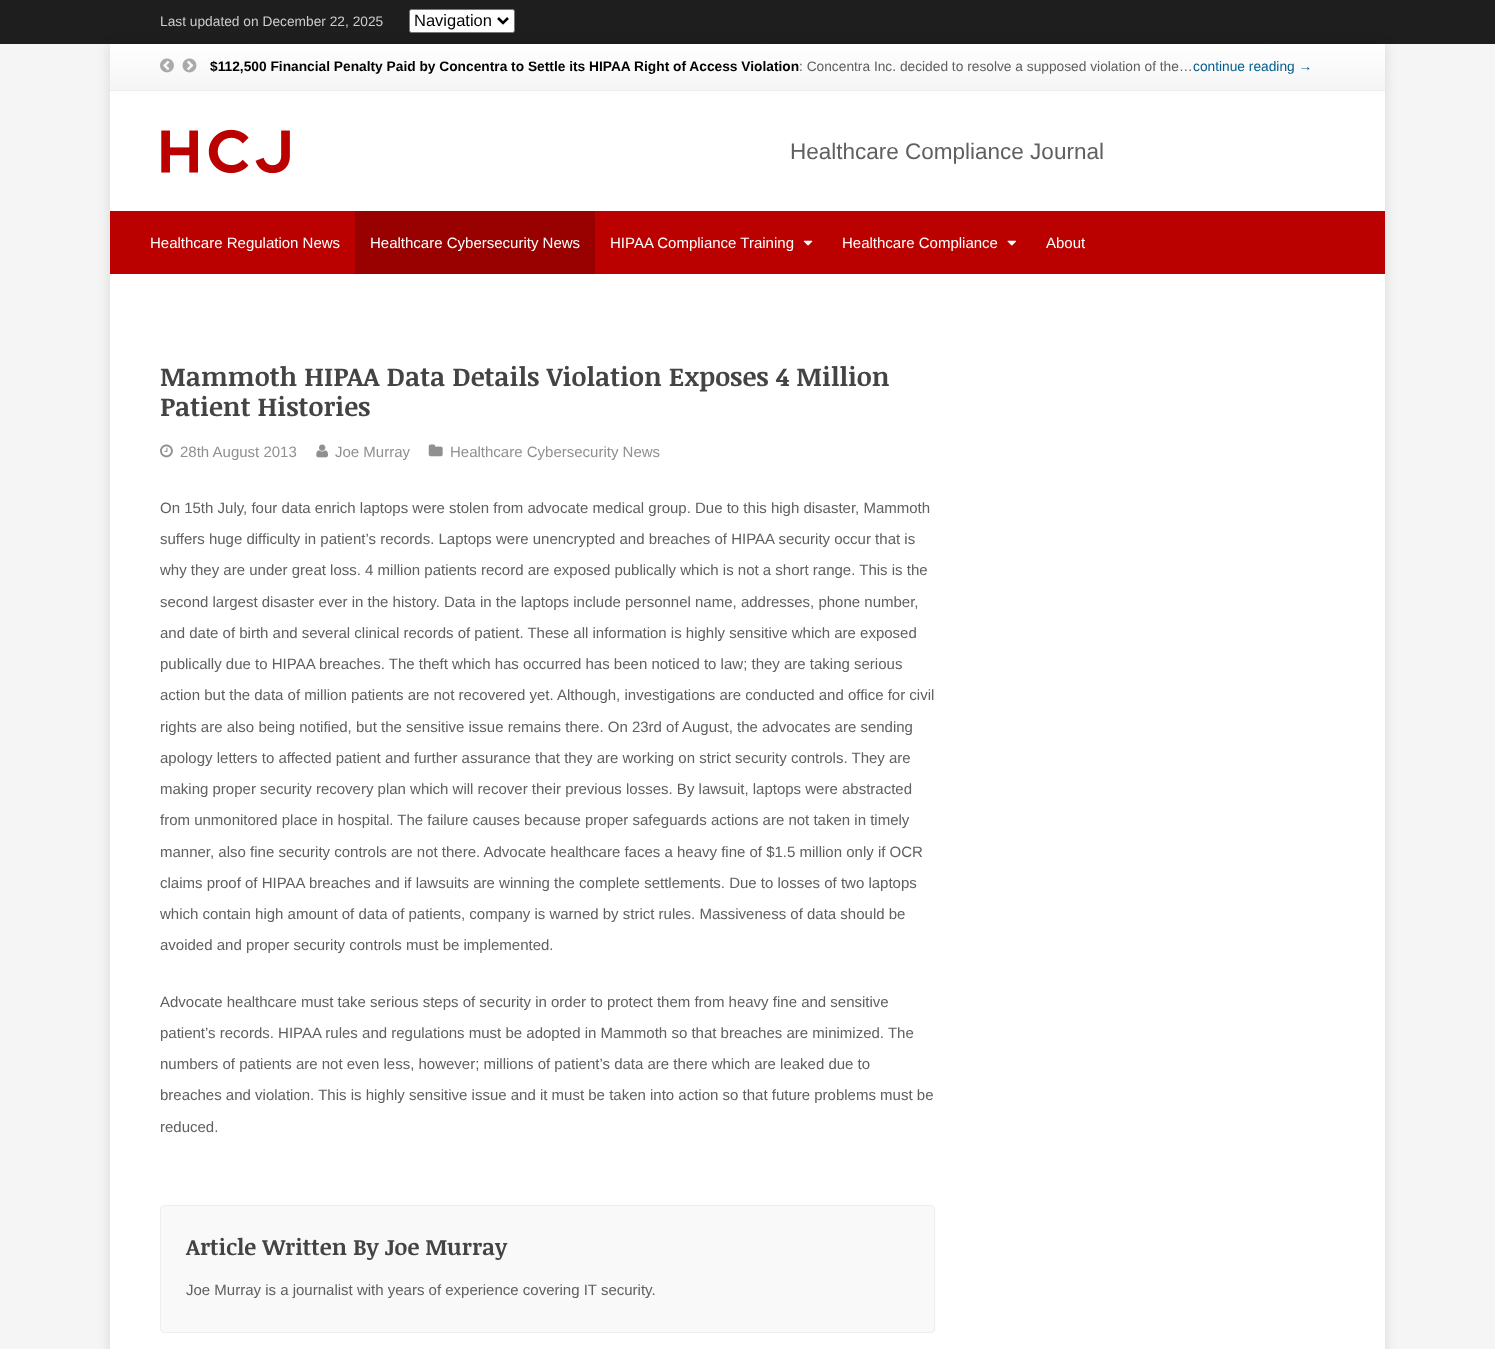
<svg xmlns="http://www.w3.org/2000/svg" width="1495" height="1349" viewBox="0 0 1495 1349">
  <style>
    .t1 { font: 13.75px Liberation Sans; fill: #ccc; }
    .t2 { font: 16.5px Liberation Sans; fill: #000; }
    .t3 { font: bold 13.75px Liberation Sans; fill: #000; }
    .t4 { font: 13.75px Liberation Sans; fill: #606060; }
    .t5 { font: 13.75px Liberation Sans; fill: #025d8c; }
    .t6 { font: 22.5px Liberation Sans; fill: #606060; }
    .t7 { font: 15px Liberation Sans; fill: #fff; }
    .t8 { font: bold 26.25px Noticia Text; fill: #444; }
    .t9 { font: 15px Liberation Sans; fill: #909090; }
    .t10 { font: 15px Liberation Sans; fill: #606060; }
    .t11 { font: bold 22.5px Noticia Text; fill: #444; }
  </style>
  <defs>
    <linearGradient id="g1" gradientUnits="userSpaceOnUse" x1="748" y1="44" x2="748" y2="90"><stop offset="0" stop-color="#fff"/><stop offset="1" stop-color="#f5f5f5"/></linearGradient>
  </defs>
  <rect width="100%" height="100%" fill="#f5f5f5"/>
  <rect x="0" y="0" width="1495" height="44" fill="#1e1e1e"/>
  <rect x="109" y="44" width="1277" height="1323" fill="#0000001a" filter="blur(6px)"/>
  <text x="160" y="26" class="t1">Last updated on December 22, 2025</text>
  <rect x="409.5" y="9.5" width="105" height="23" rx="2" fill="#fff" stroke="#767676"/>
  <path d="M498 18L503 23L508 18" fill="none" stroke="#000" stroke-width="2.5"/>
  <text x="414" y="26" class="t2">Navigation</text>
  <rect x="110" y="91" width="1275" height="1258" fill="#fff"/>
  <rect x="1385" y="44" width="1" height="3" fill="#e9e9e9"/>
  <rect x="109" y="44" width="1" height="3" fill="#e9e9e9"/>
  <rect x="110" y="44" width="1275" height="46" fill="url(#g1)"/>
  <rect x="110" y="90" width="1275" height="1" fill="#eee"/>
  <image x="160" y="58" width="14" height="15" href="images/1.png"/>
  <image x="182" y="58" width="15" height="15" href="images/2.png"/>
  <text x="210" y="71" class="t3">$112,500 Financial Penalty Paid by Concentra to Settle its HIPAA Right of Access Violation</text>
  <text x="799" y="71" class="t4">: Concentra Inc. decided to resolve a supposed violation of the…</text>
  <text x="1193" y="71" class="t5">continue reading →</text>
  <image x="161" y="129" width="129" height="45" href="images/3.png"/>
  <text x="790" y="159" class="t6">Healthcare Compliance Journal</text>
  <rect x="110" y="211" width="1275" height="63" fill="#b00"/>
  <text x="150" y="248" class="t7">Healthcare Regulation News</text>
  <rect x="355" y="211" width="240" height="63" fill="#900"/>
  <text x="370" y="248" class="t7">Healthcare Cybersecurity News</text>
  <text x="610" y="248" class="t7">HIPAA Compliance Training</text>
  <image x="803" y="240" width="10" height="6" href="images/4.png"/>
  <text x="842" y="248" class="t7">Healthcare Compliance</text>
  <image x="1007" y="240" width="9" height="6" href="images/5.png"/>
  <text x="1046" y="248" class="t7">About</text>
  <text x="160" y="386" class="t8">Mammoth HIPAA Data Details Violation Exposes 4 Million</text>
  <text x="160" y="416" class="t8">Patient Histories</text>
  <image x="160" y="444" width="13" height="14" href="images/6.png"/>
  <text x="180" y="457" class="t9">28th August 2013</text>
  <image x="316" y="444" width="12" height="14" href="images/7.png"/>
  <text x="335" y="457" class="t9">Joe Murray</text>
  <image x="428" y="444" width="15" height="13" href="images/8.png"/>
  <text x="450" y="457" class="t9">Healthcare Cybersecurity News</text>
  <text x="160" y="513" class="t10">On 15th July, four data enrich laptops were stolen from advocate medical group. Due to this high disaster, Mammoth</text>
  <text x="160" y="544" class="t10">suffers huge difficulty in patient’s records. Laptops were unencrypted and breaches of HIPAA security occur that is</text>
  <text x="160" y="575" class="t10">why they are under great loss. 4 million patients record are exposed publically which is not a short range. This is the</text>
  <text x="160" y="607" class="t10">second largest disaster ever in the history. Data in the laptops include personnel name, addresses, phone number,</text>
  <text x="160" y="638" class="t10">and date of birth and several clinical records of patient. These all information is highly sensitive which are exposed</text>
  <text x="160" y="669" class="t10">publically due to HIPAA breaches. The theft which has occurred has been noticed to law; they are taking serious</text>
  <text x="160" y="700" class="t10">action but the data of million patients are not recovered yet. Although, investigations are conducted and office for civil</text>
  <text x="160" y="732" class="t10">rights are also being notified, but the sensitive issue remains there. On 23rd of August, the advocates are sending</text>
  <text x="160" y="763" class="t10">apology letters to affected patient and further assurance that they are working on strict security controls. They are</text>
  <text x="160" y="794" class="t10">making proper security recovery plan which will recover their previous losses. By lawsuit, laptops were abstracted</text>
  <text x="160" y="825" class="t10">from unmonitored place in hospital. The failure causes because proper safeguards actions are not taken in timely</text>
  <text x="160" y="857" class="t10">manner, also fine security controls are not there. Advocate healthcare faces a heavy fine of $1.5 million only if OCR</text>
  <text x="160" y="888" class="t10">claims proof of HIPAA breaches and if lawsuits are winning the complete settlements. Due to losses of two laptops</text>
  <text x="160" y="919" class="t10">which contain high amount of data of patients, company is warned by strict rules. Massiveness of data should be</text>
  <text x="160" y="950" class="t10">avoided and proper security controls must be implemented.</text>
  <text x="160" y="1007" class="t10">Advocate healthcare must take serious steps of security in order to protect them from heavy fine and sensitive</text>
  <text x="160" y="1038" class="t10">patient’s records. HIPAA rules and regulations must be adopted in Mammoth so that breaches are minimized. The</text>
  <text x="160" y="1069" class="t10">numbers of patients are not even less, however; millions of patient’s data are there which are leaked due to</text>
  <text x="160" y="1100" class="t10">breaches and violation. This is highly sensitive issue and it must be taken into action so that future problems must be</text>
  <text x="160" y="1132" class="t10">reduced.</text>
  <rect x="160.5" y="1205.5" width="774" height="127" rx="3.5" fill="#f9f9f9" stroke="#eee"/>
  <text x="186" y="1255" class="t11">Article Written By Joe Murray</text>
  <text x="186" y="1295" class="t10">Joe Murray is a journalist with years of experience covering IT security.</text>
</svg>
